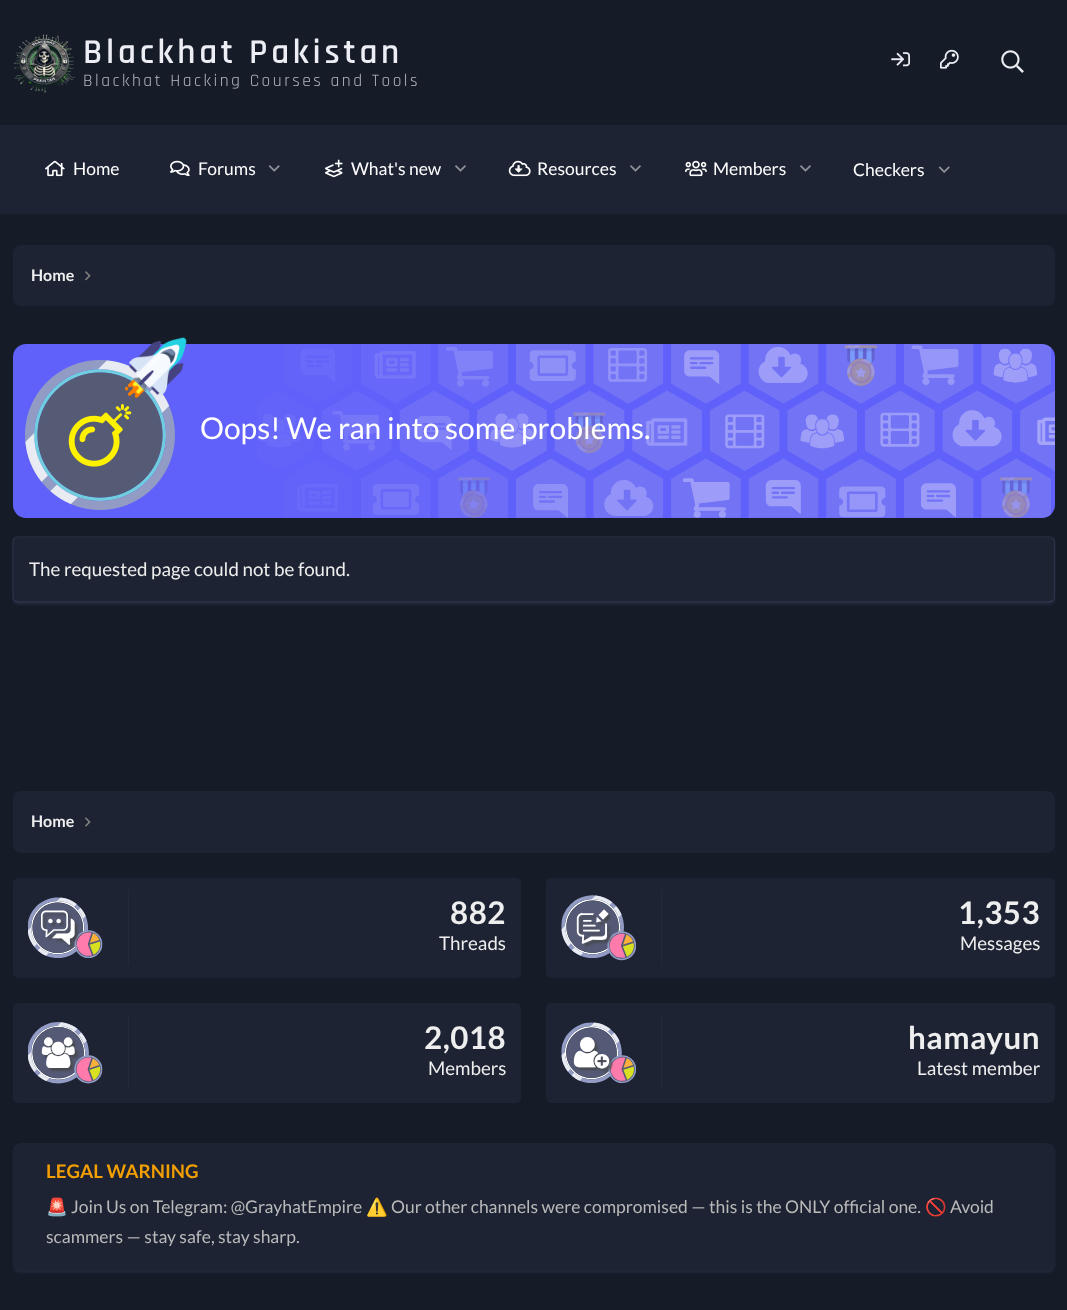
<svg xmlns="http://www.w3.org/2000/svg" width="1067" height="1310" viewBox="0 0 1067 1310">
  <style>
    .t1 { font: 600 35px Rajdhani; letter-spacing: 3.75px; fill: #eceef4; }
    .t2 { font: 17.5px Rajdhani; letter-spacing: 2.5px; fill: #b7b9c1; }
    .t3 { font: 17.5px Lato; fill: #fff; }
    .t4 { font: bold 16px Lato; fill: #eee; }
    .t5 { font: 30px Lato; fill: #fff; }
    .t6 { font: 18.75px Lato; fill: #eee; }
    .t7 { font: bold 31.25px Lato; letter-spacing: 0.5px; fill: #eee; }
    .t8 { font: bold 18.75px Lato; fill: #f29f03; }
    .t9 { font: 17.5px Noto Color Emoji; fill: #bababa; }
    .t10 { font: 17.5px Lato; fill: #bababa; }
  </style>
  <rect width="100%" height="100%" fill="#161b28"/>
  <image x="14" y="34" width="61" height="59" href="images/1.png"/>
  <text x="83" y="63" class="t1">Blackhat Pakistan</text>
  <text x="83" y="86" class="t2">Blackhat Hacking Courses and Tools</text>
  <image x="891" y="52" width="19" height="15" href="images/2.png"/>
  <image x="940" y="49" width="19" height="20" href="images/3.png"/>
  <image x="1001" y="50" width="23" height="23" href="images/4.png"/>
  <rect x="0" y="125" width="1067" height="89" fill="#1d2333"/>
  <image x="45" y="160" width="20" height="17" href="images/5.png"/>
  <text x="73" y="175" class="t3">Home</text>
  <image x="170" y="160" width="20" height="17" href="images/6.png"/>
  <text x="198" y="175" class="t3">Forums</text>
  <image x="268" y="165" width="12" height="7" href="images/7.png"/>
  <image x="325" y="159" width="18" height="19" href="images/8.png"/>
  <text x="351" y="175" class="t3">What's new</text>
  <image x="455" y="165" width="11" height="7" href="images/9.png"/>
  <image x="508" y="160" width="23" height="17" href="images/10.png"/>
  <text x="537" y="175" class="t3">Resources</text>
  <image x="630" y="165" width="11" height="7" href="images/9.png"/>
  <image x="685" y="160" width="22" height="17" href="images/11.png"/>
  <text x="713" y="175" class="t3">Members</text>
  <image x="800" y="165" width="11" height="7" href="images/9.png"/>
  <text x="853" y="176" class="t3">Checkers</text>
  <image x="938" y="166" width="12" height="7" href="images/12.png"/>
  <rect x="13" y="245" width="1042" height="61" rx="8" fill="#1d2333"/>
  <text x="31" y="281" class="t4">Home</text>
  <image x="85" y="271" width="6" height="10" href="images/13.png"/>
  <rect x="13" y="344" width="1042" height="174" rx="13" fill="#6060fa"/>
  <image x="257" y="344" width="798" height="174" href="images/14.png"/>
  <image x="25" y="360" width="150" height="150" href="images/16.png"/>
  <image x="125" y="337" width="62" height="61" href="images/15.png"/>
  <image x="68" y="404" width="64" height="63" href="images/17.png"/>
  <text x="200" y="439" class="t5">Oops! We ran into some problems.</text>
  <rect x="13" y="539" width="1042" height="66" rx="5" fill="#6e81af1f" filter="blur(1px)"/>
  <rect x="13" y="536" width="1042" height="67" rx="5" fill="#1d2333"/>
  <path d="M14.5 538L17.5 537H1050L1053 538" fill="none" stroke="#242c40" stroke-width="1.2"/>
  <path d="M1053 538C1054 539 1054.5 540 1054.5 541V597.5C1054.5 598.5 1054 600 1053 600.5" fill="none" stroke="#2a334a" stroke-width="1.2"/>
  <path d="M1053 600.5L1050 602H17.5L14.5 600.5" fill="none" stroke="#333e5a" stroke-width="1.2"/>
  <path d="M14.5 600.5C13.5 600 13 598.5 13 597.5V541C13 540 13.5 539 14.5 538" fill="none" stroke="#2a334a" stroke-width="1.2"/>
  <text x="29" y="576" class="t6">The requested page could not be found.</text>
  <rect x="13" y="791" width="1042" height="62" rx="8" fill="#1d2333"/>
  <text x="31" y="827" class="t4">Home</text>
  <image x="85" y="817" width="6" height="10" href="images/18.png"/>
  <rect x="13" y="878" width="508" height="100" rx="5" fill="#1d2333"/>
  <rect x="128" y="890" width="1" height="75" fill="#22293b"/>
  <image x="28" y="897" width="75" height="61" href="images/19.png"/>
  <text x="450" y="924" class="t7">882</text>
  <text x="439" y="950" class="t6">Threads</text>
  <rect x="546" y="878" width="509" height="100" rx="5" fill="#1d2333"/>
  <rect x="661" y="890" width="1" height="75" fill="#22293b"/>
  <image x="561" y="895" width="75" height="66" href="images/20.png"/>
  <text x="958" y="924" class="t7">1,353</text>
  <text x="960" y="950" class="t6">Messages</text>
  <rect x="13" y="1003" width="508" height="100" rx="5" fill="#1d2333"/>
  <rect x="128" y="1015" width="1" height="75" fill="#22293b"/>
  <image x="28" y="1022" width="75" height="62" href="images/21.png"/>
  <text x="424" y="1049" class="t7">2,018</text>
  <text x="428" y="1075" class="t6">Members</text>
  <rect x="546" y="1003" width="509" height="100" rx="5" fill="#1d2333"/>
  <rect x="661" y="1015" width="1" height="75" fill="#22293b"/>
  <image x="561" y="1022" width="75" height="61" href="images/22.png"/>
  <text x="908" y="1049" class="t7">hamayun</text>
  <text x="917" y="1075" class="t6">Latest member</text>
  <rect x="13" y="1145" width="1042" height="128" rx="8" fill="#6e81af1f" filter="blur(1px)"/>
  <rect x="13" y="1143" width="1042" height="127" rx="8" fill="#1d2333"/>
  <text x="46" y="1178" class="t8">LEGAL WARNING</text>
  <text x="46" y="1213" class="t9">🚨</text>
  <text x="71" y="1213" class="t10">Join Us on Telegram: @GrayhatEmpire</text>
  <text x="366" y="1213" class="t9">⚠️</text>
  <text x="391" y="1213" class="t10">Our other channels were compromised — this is the ONLY official one.</text>
  <text x="925" y="1213" class="t9">🚫</text>
  <text x="950" y="1213" class="t10">Avoid</text>
  <text x="46" y="1243" class="t10">scammers — stay safe, stay sharp.</text>
</svg>
